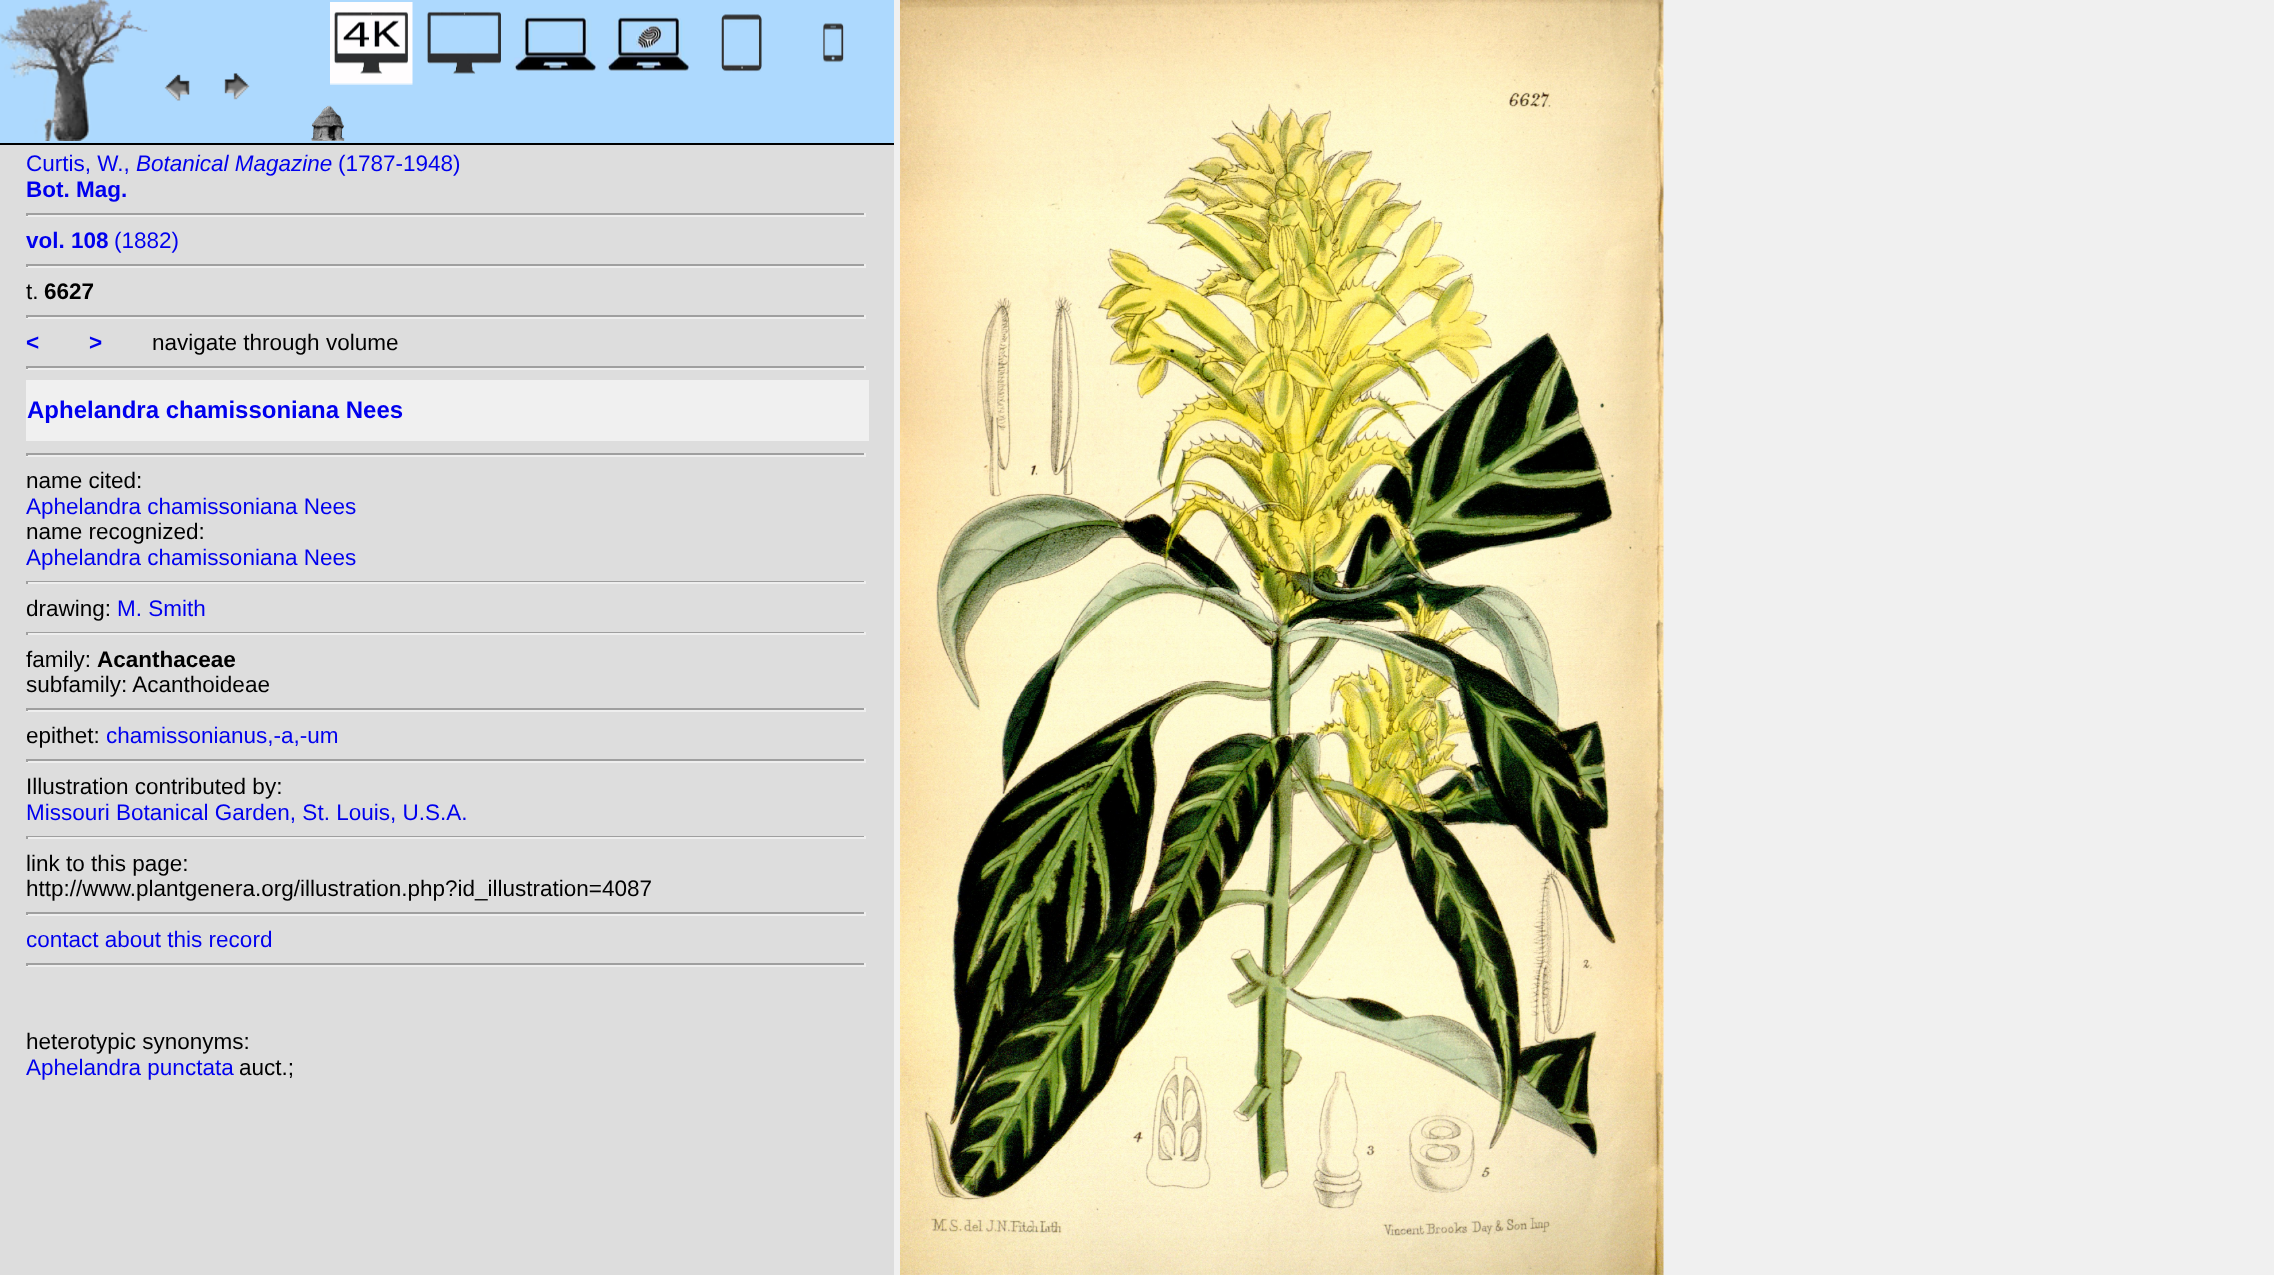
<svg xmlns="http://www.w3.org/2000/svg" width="2274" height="1275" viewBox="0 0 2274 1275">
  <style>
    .t1 { font: 22.5px Liberation Sans; fill: #00e; }
    .t2 { font: italic 22.5px Liberation Sans; fill: #00e; }
    .t3 { font: bold 22.5px Liberation Sans; fill: #00e; }
    .t4 { font: 22.5px Liberation Sans; fill: #000; }
    .t5 { font: bold 22.5px Liberation Sans; fill: #000; }
    .t6 { font: bold 24px Liberation Sans; fill: #00e; }
  </style>
  <rect width="100%" height="100%" fill="#f0f0f0"/>
  <rect x="0" y="145" width="894" height="1130" fill="#ddd"/>
  <rect x="0" y="0" width="894" height="143" fill="#add9fe"/>
  <rect x="0" y="143" width="894" height="2" fill="#000"/>
  <image x="0" y="0" width="150" height="141" href="images/1.png"/>
  <image x="164" y="74" width="26" height="27" href="images/2.png"/>
  <image x="224" y="73" width="26" height="27" href="images/3.png"/>
  <image x="330" y="2" width="83" height="83" href="images/4.png"/>
  <image x="426" y="11" width="75" height="64" href="images/5.png"/>
  <image x="514" y="14" width="83" height="57" href="images/6.png"/>
  <image x="607" y="14" width="83" height="57" href="images/7.png"/>
  <image x="721" y="14" width="41" height="58" href="images/8.png"/>
  <image x="823" y="23" width="21" height="40" href="images/9.png"/>
  <image x="311" y="105" width="34" height="36" href="images/10.png"/>
  <text x="26" y="171" class="t1">Curtis, W.,</text>
  <text x="136" y="171" class="t2">Botanical Magazine</text>
  <text x="338" y="171" class="t1">(1787-1948)</text>
  <text x="26" y="197" class="t3">Bot. Mag.</text>
  <rect x="26" y="213" width="840" height="2" fill="#9f9f9f"/>
  <rect x="864" y="213" width="2" height="3" fill="#eee"/>
  <rect x="26" y="215" width="840" height="2" fill="#eee"/>
  <rect x="26" y="213" width="2" height="3" fill="#9f9f9f"/>
  <text x="26" y="248" class="t3">vol. 108</text>
  <text x="114" y="248" class="t1">(1882)</text>
  <rect x="26" y="264" width="840" height="2" fill="#9f9f9f"/>
  <rect x="864" y="264" width="2" height="3" fill="#eee"/>
  <rect x="26" y="266" width="840" height="2" fill="#eee"/>
  <rect x="26" y="264" width="2" height="3" fill="#9f9f9f"/>
  <text x="26" y="299" class="t4">t.</text>
  <text x="44" y="299" class="t5">6627</text>
  <rect x="26" y="315" width="840" height="2" fill="#9f9f9f"/>
  <rect x="864" y="315" width="2" height="3" fill="#eee"/>
  <rect x="26" y="317" width="840" height="2" fill="#eee"/>
  <rect x="26" y="315" width="2" height="3" fill="#9f9f9f"/>
  <text x="26" y="350" class="t3">&lt;</text>
  <text x="89" y="350" class="t3">&gt;</text>
  <text x="152" y="350" class="t4">navigate through volume</text>
  <rect x="26" y="366" width="840" height="2" fill="#9f9f9f"/>
  <rect x="864" y="366" width="2" height="3" fill="#eee"/>
  <rect x="26" y="368" width="840" height="2" fill="#eee"/>
  <rect x="26" y="366" width="2" height="3" fill="#9f9f9f"/>
  <rect x="26" y="380" width="843" height="61" fill="#f0f0f0"/>
  <text x="27" y="418" class="t6">Aphelandra chamissoniana Nees</text>
  <rect x="26" y="453" width="840" height="2" fill="#9f9f9f"/>
  <rect x="864" y="453" width="2" height="3" fill="#eee"/>
  <rect x="26" y="455" width="840" height="2" fill="#eee"/>
  <rect x="26" y="453" width="2" height="3" fill="#9f9f9f"/>
  <text x="26" y="488" class="t4">name cited:</text>
  <text x="26" y="514" class="t1">Aphelandra chamissoniana Nees</text>
  <text x="26" y="539" class="t4">name recognized:</text>
  <text x="26" y="565" class="t1">Aphelandra chamissoniana Nees</text>
  <rect x="26" y="581" width="840" height="1" fill="#9f9f9f"/>
  <rect x="864" y="581" width="2" height="3" fill="#eee"/>
  <rect x="26" y="582" width="840" height="2" fill="#eee"/>
  <rect x="26" y="581" width="2" height="3" fill="#9f9f9f"/>
  <text x="26" y="616" class="t4">drawing:</text>
  <text x="117" y="616" class="t1">M. Smith</text>
  <rect x="26" y="632" width="840" height="1" fill="#9f9f9f"/>
  <rect x="864" y="632" width="2" height="3" fill="#eee"/>
  <rect x="26" y="633" width="840" height="2" fill="#eee"/>
  <rect x="26" y="632" width="2" height="3" fill="#9f9f9f"/>
  <text x="26" y="667" class="t4">family:</text>
  <text x="97" y="667" class="t5">Acanthaceae</text>
  <text x="26" y="692" class="t4">subfamily: Acanthoideae</text>
  <rect x="26" y="708" width="840" height="2" fill="#9f9f9f"/>
  <rect x="864" y="708" width="2" height="3" fill="#eee"/>
  <rect x="26" y="710" width="840" height="2" fill="#eee"/>
  <rect x="26" y="708" width="2" height="3" fill="#9f9f9f"/>
  <text x="26" y="743" class="t4">epithet:</text>
  <text x="106" y="743" class="t1">chamissonianus,-a,-um</text>
  <rect x="26" y="759" width="840" height="2" fill="#9f9f9f"/>
  <rect x="864" y="759" width="2" height="3" fill="#eee"/>
  <rect x="26" y="761" width="840" height="2" fill="#eee"/>
  <rect x="26" y="759" width="2" height="3" fill="#9f9f9f"/>
  <text x="26" y="794" class="t4">Illustration contributed by:</text>
  <text x="26" y="820" class="t1">Missouri Botanical Garden, St. Louis, U.S.A.</text>
  <rect x="26" y="836" width="840" height="1" fill="#9f9f9f"/>
  <rect x="864" y="836" width="2" height="3" fill="#eee"/>
  <rect x="26" y="837" width="840" height="2" fill="#eee"/>
  <rect x="26" y="836" width="2" height="3" fill="#9f9f9f"/>
  <text x="26" y="871" class="t4">link to this page:</text>
  <text x="26" y="896" class="t4">http://www.plantgenera.org/illustration.php?id_illustration=4087</text>
  <rect x="26" y="912" width="840" height="2" fill="#9f9f9f"/>
  <rect x="864" y="912" width="2" height="3" fill="#eee"/>
  <rect x="26" y="914" width="840" height="2" fill="#eee"/>
  <rect x="26" y="912" width="2" height="3" fill="#9f9f9f"/>
  <text x="26" y="947" class="t1">contact about this record</text>
  <rect x="26" y="963" width="840" height="2" fill="#9f9f9f"/>
  <rect x="864" y="963" width="2" height="3" fill="#eee"/>
  <rect x="26" y="965" width="840" height="2" fill="#eee"/>
  <rect x="26" y="963" width="2" height="3" fill="#9f9f9f"/>
  <text x="26" y="1049" class="t4">heterotypic synonyms:</text>
  <text x="26" y="1075" class="t1">Aphelandra punctata</text>
  <text x="239" y="1075" class="t4">auct.;</text>
  <image x="900" y="0" width="764" height="1275" href="images/11.png"/>
</svg>
